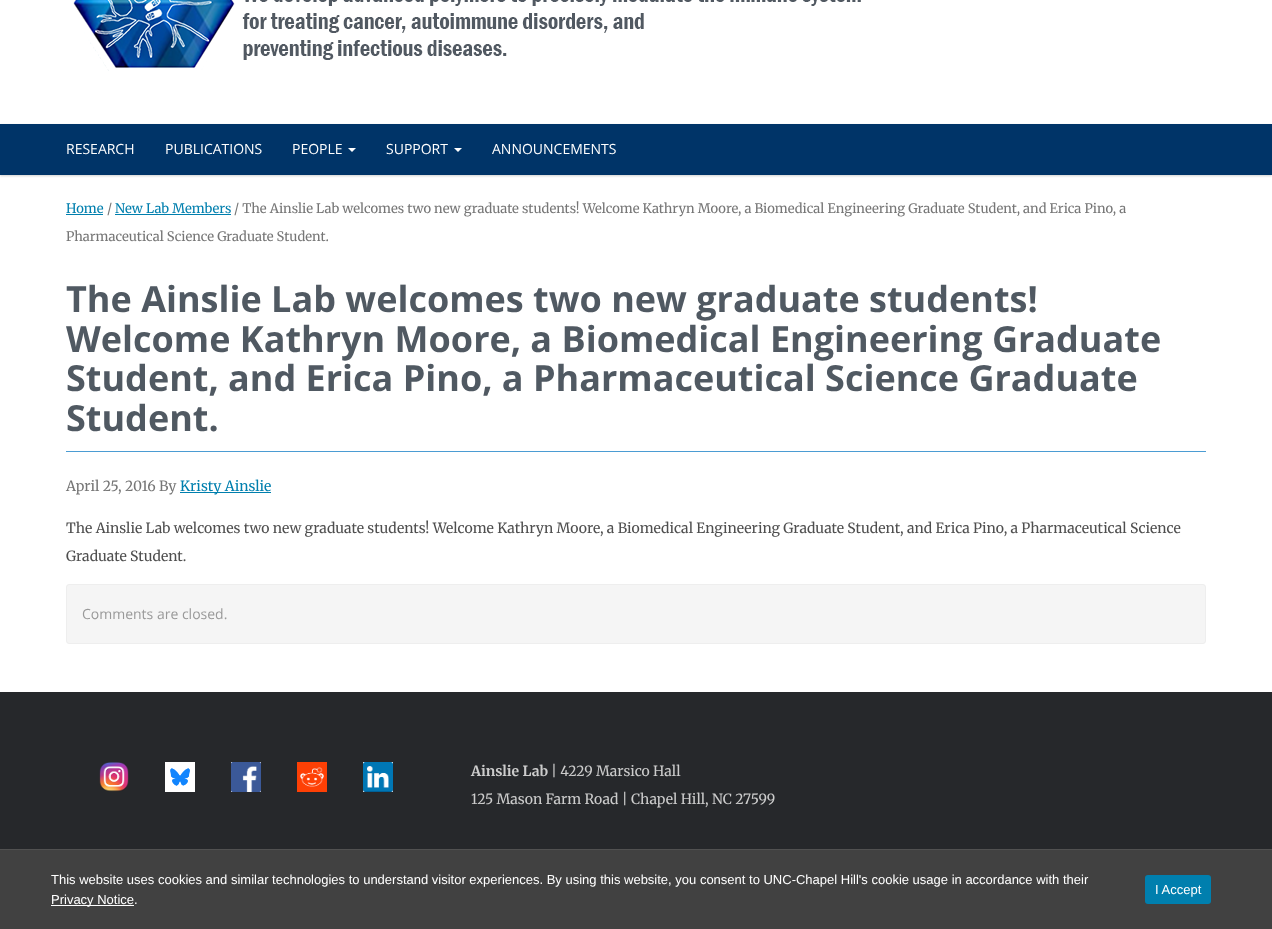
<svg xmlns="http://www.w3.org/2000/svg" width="1272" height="929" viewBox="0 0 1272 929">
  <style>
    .t1 { font: 14px Open Sans; fill: #fff; }
    .t2 { font: 13px Merriweather; fill: #007fae; }
    .t3 { font: 13px Merriweather; fill: #767676; }
    .t4 { font: bold 36px Open Sans; fill: #505962; }
    .t5 { font: 14px Merriweather; fill: #767676; }
    .t6 { font: 14px Merriweather; fill: #007fae; }
    .t7 { font: 14px Merriweather; fill: #4f4f4f; }
    .t8 { font: 14px Open Sans; fill: #999; }
    .t9 { font: bold 14px Merriweather; fill: #ccc; }
    .t10 { font: 14px Merriweather; fill: #ccc; }
    .t11 { font: 13px Liberation Sans; fill: #fff; }
  </style>
  <rect width="100%" height="100%" fill="#fff"/>
  <image x="73" y="0" width="788" height="71" href="images/1.png"/>
  <rect x="0" y="125" width="1272" height="51" fill="#6464644d" filter="blur(1px)"/>
  <rect x="0" y="124" width="1272" height="51" fill="#003468"/>
  <text x="66" y="154" class="t1">RESEARCH</text>
  <text x="165" y="154" class="t1">PUBLICATIONS</text>
  <text x="292" y="154" class="t1">PEOPLE</text>
  <path d="M348 148H356L352 152Z" fill="#fff"/>
  <text x="386" y="154" class="t1">SUPPORT</text>
  <path d="M454 148H462L458 152Z" fill="#fff"/>
  <text x="492" y="154" class="t1">ANNOUNCEMENTS</text>
  <text x="66" y="213" class="t2">Home</text>
  <rect x="66" y="214" width="37" height="1" fill="#007fae"/>
  <text x="107" y="213" class="t3">/</text>
  <text x="115" y="213" class="t2">New Lab Members</text>
  <rect x="115" y="214" width="116" height="1" fill="#007fae"/>
  <text x="234" y="213" class="t3">/ The Ainslie Lab welcomes two new graduate students! Welcome Kathryn Moore, a Biomedical Engineering Graduate Student, and Erica Pino, a</text>
  <text x="66" y="241" class="t3">Pharmaceutical Science Graduate Student.</text>
  <rect x="66" y="451" width="1140" height="1" fill="#4b9cd3"/>
  <text x="66" y="312" class="t4">The Ainslie Lab welcomes two new graduate students!</text>
  <text x="66" y="352" class="t4">Welcome Kathryn Moore, a Biomedical Engineering Graduate</text>
  <text x="66" y="391" class="t4">Student, and Erica Pino, a Pharmaceutical Science Graduate</text>
  <text x="66" y="431" class="t4">Student.</text>
  <text x="66" y="491" class="t5">April 25, 2016 By</text>
  <rect x="180" y="492" width="91" height="1" fill="#007fae"/>
  <text x="180" y="491" class="t6">Kristy Ainslie</text>
  <text x="66" y="533" class="t7">The Ainslie Lab welcomes two new graduate students! Welcome Kathryn Moore, a Biomedical Engineering Graduate Student, and Erica Pino, a Pharmaceutical Science</text>
  <text x="66" y="561" class="t7">Graduate Student.</text>
  <rect x="66.5" y="584.5" width="1139" height="59" rx="2.5" fill="#f5f5f5" stroke="#eee"/>
  <text x="82" y="619" class="t8">Comments are closed.</text>
  <rect x="0" y="692" width="1272" height="157" fill="#26282b"/>
  <image x="99" y="762" width="30" height="30" href="images/2.png"/>
  <image x="165" y="762" width="30" height="30" href="images/3.png"/>
  <image x="231" y="762" width="30" height="30" href="images/4.png"/>
  <image x="297" y="762" width="30" height="30" href="images/5.png"/>
  <image x="363" y="762" width="30" height="30" href="images/6.png"/>
  <text x="471" y="776" class="t9">Ainslie Lab</text>
  <text x="551" y="776" class="t10">| 4229 Marsico Hall</text>
  <text x="471" y="804" class="t10">125 Mason Farm Road | Chapel Hill, NC 27599</text>
  <rect x="0" y="850" width="1272" height="79" fill="#414141"/>
  <rect x="0" y="849" width="1272" height="1" fill="#515151"/>
  <text x="51" y="884" class="t11">This website uses cookies and similar technologies to understand visitor experiences. By using this website, you consent to UNC-Chapel Hill's cookie usage in accordance with their</text>
  <rect x="51" y="905" width="83" height="1" fill="#fff"/>
  <text x="51" y="904" class="t11">Privacy Notice.</text>
  <rect x="1145" y="875" width="66" height="29" rx="3" fill="#007fae"/>
  <text x="1155" y="894" class="t11">I Accept</text>
</svg>
